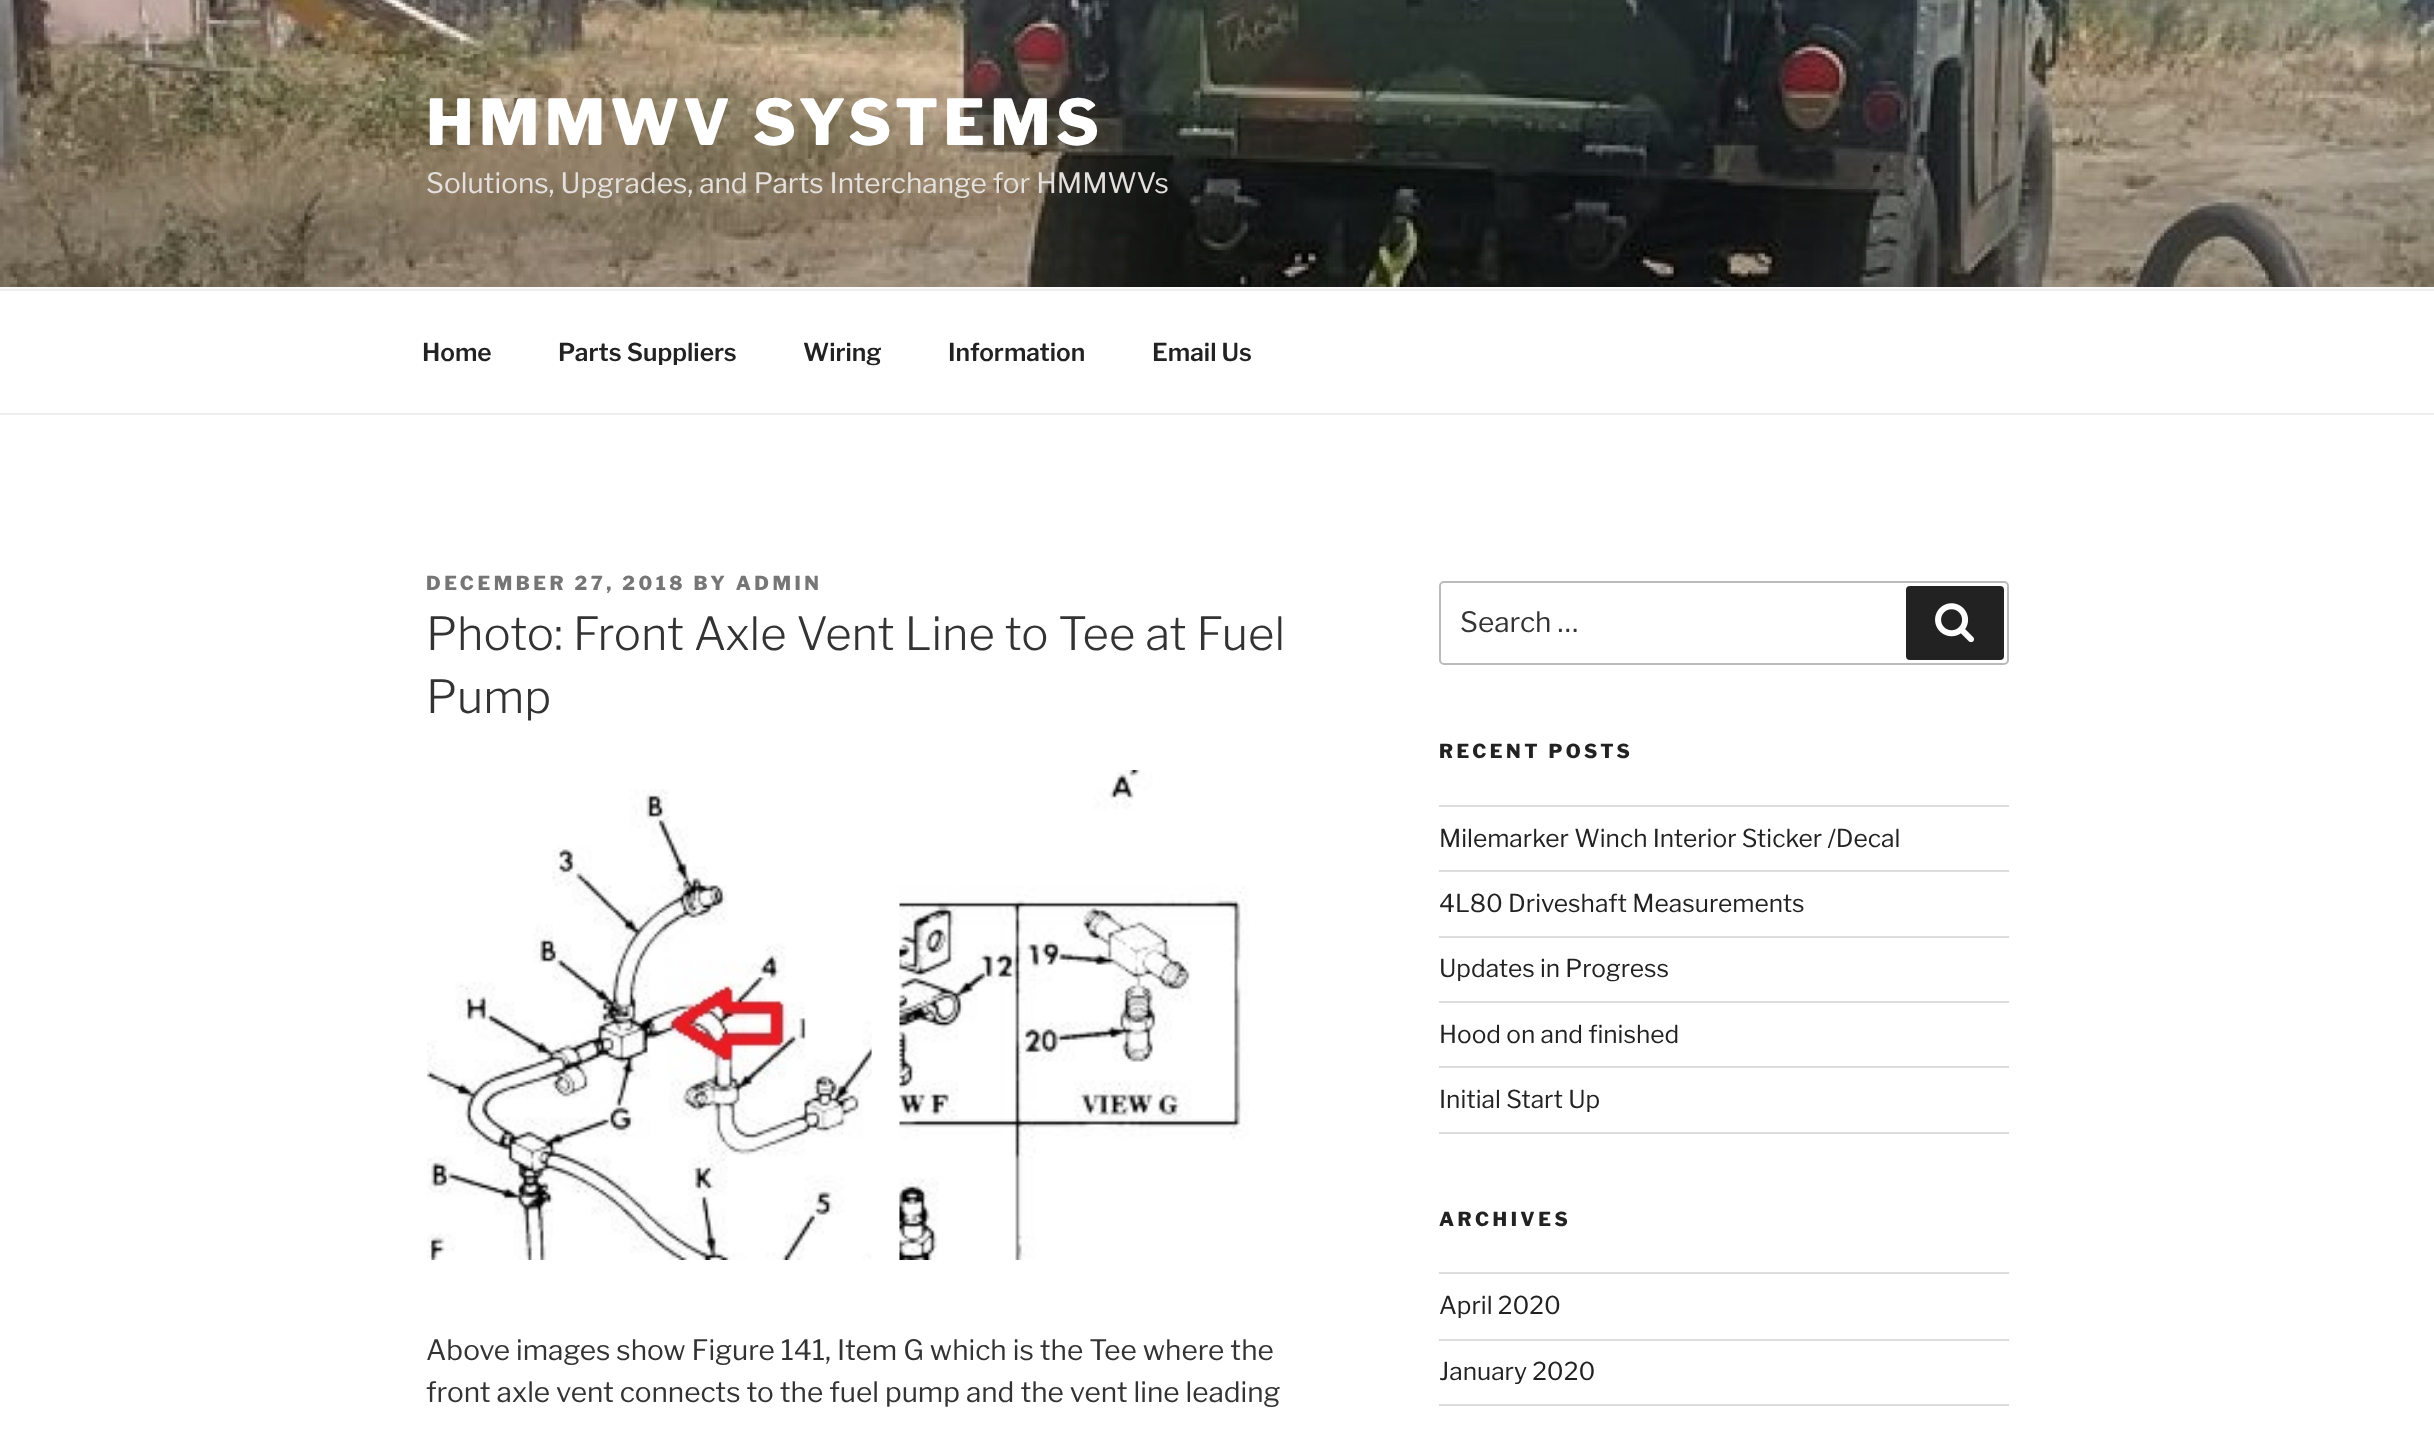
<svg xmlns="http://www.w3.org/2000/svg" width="2434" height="1433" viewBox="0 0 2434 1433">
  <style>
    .t1 { font: 800 63px Libre Franklin; letter-spacing: 5px; fill: #fff; }
    .t2 { font: 28px Libre Franklin; fill: #e4e1dd; }
    .t3 { font: 600 24.5px Libre Franklin; fill: #222; }
    .t4 { font: 800 19.25px Libre Franklin; letter-spacing: 3.5px; fill: #767676; }
    .t5 { font: 300 45.5px Libre Franklin; fill: #333; }
    .t6 { font: 28px Libre Franklin; fill: #333; }
    .t7 { font: 800 19.25px Libre Franklin; letter-spacing: 3.5px; fill: #222; }
    .t8 { font: 24.5px Libre Franklin; fill: #222; }
  </style>
  <rect width="100%" height="100%" fill="#fff"/>
  <rect x="0" y="287" width="2434" height="2" fill="#fafafa"/>
  <image x="0" y="0" width="2434" height="287" href="images/1.png"/>
  <text x="426" y="145" class="t1">HMMWV SYSTEMS</text>
  <text x="426" y="193" class="t2">Solutions, Upgrades, and Parts Interchange for HMMWVs</text>
  <rect x="0" y="289" width="2434" height="2" fill="#eee"/>
  <rect x="0" y="413" width="2434" height="2" fill="#eee"/>
  <text x="422" y="361" class="t3">Home</text>
  <text x="558" y="361" class="t3">Parts Suppliers</text>
  <text x="803" y="361" class="t3">Wiring</text>
  <text x="948" y="361" class="t3">Information</text>
  <text x="1152" y="361" class="t3">Email Us</text>
  <text x="426" y="590" class="t4">DECEMBER 27, 2018 BY ADMIN</text>
  <text x="426" y="650" class="t5">Photo: Front Axle Vent Line to Tee at Fuel</text>
  <text x="426" y="713" class="t5">Pump</text>
  <image x="427" y="789" width="445" height="471" href="images/2.png"/>
  <image x="899" y="770" width="350" height="490" href="images/3.png"/>
  <text x="426" y="1360" class="t6">Above images show Figure 141, Item G which is the Tee where the</text>
  <text x="426" y="1402" class="t6">front axle vent connects to the fuel pump and the vent line leading</text>
  <rect x="1440" y="582" width="568" height="82" rx="4" fill="none" stroke="#bbb" stroke-width="2"/>
  <text x="1460" y="632" class="t6">Search …</text>
  <rect x="1906" y="586" width="98" height="74" rx="4" fill="#222"/>
  <image x="1935" y="603" width="39" height="39" href="images/4.png"/>
  <text x="1439" y="758" class="t7">RECENT POSTS</text>
  <rect x="1439" y="805" width="570" height="2" fill="#ddd"/>
  <rect x="1439" y="870" width="570" height="2" fill="#ddd"/>
  <text x="1439" y="847" class="t8">Milemarker Winch Interior Sticker /Decal</text>
  <rect x="1439" y="936" width="570" height="2" fill="#ddd"/>
  <text x="1439" y="912" class="t8">4L80 Driveshaft Measurements</text>
  <rect x="1439" y="1001" width="570" height="2" fill="#ddd"/>
  <text x="1439" y="977" class="t8">Updates in Progress</text>
  <rect x="1439" y="1066" width="570" height="2" fill="#ddd"/>
  <text x="1439" y="1043" class="t8">Hood on and finished</text>
  <rect x="1439" y="1132" width="570" height="2" fill="#ddd"/>
  <text x="1439" y="1108" class="t8">Initial Start Up</text>
  <text x="1439" y="1226" class="t7">ARCHIVES</text>
  <rect x="1439" y="1272" width="570" height="2" fill="#ddd"/>
  <rect x="1439" y="1339" width="570" height="2" fill="#ddd"/>
  <text x="1439" y="1314" class="t8">April 2020</text>
  <rect x="1439" y="1404" width="570" height="2" fill="#ddd"/>
  <text x="1439" y="1380" class="t8">January 2020</text>
</svg>
